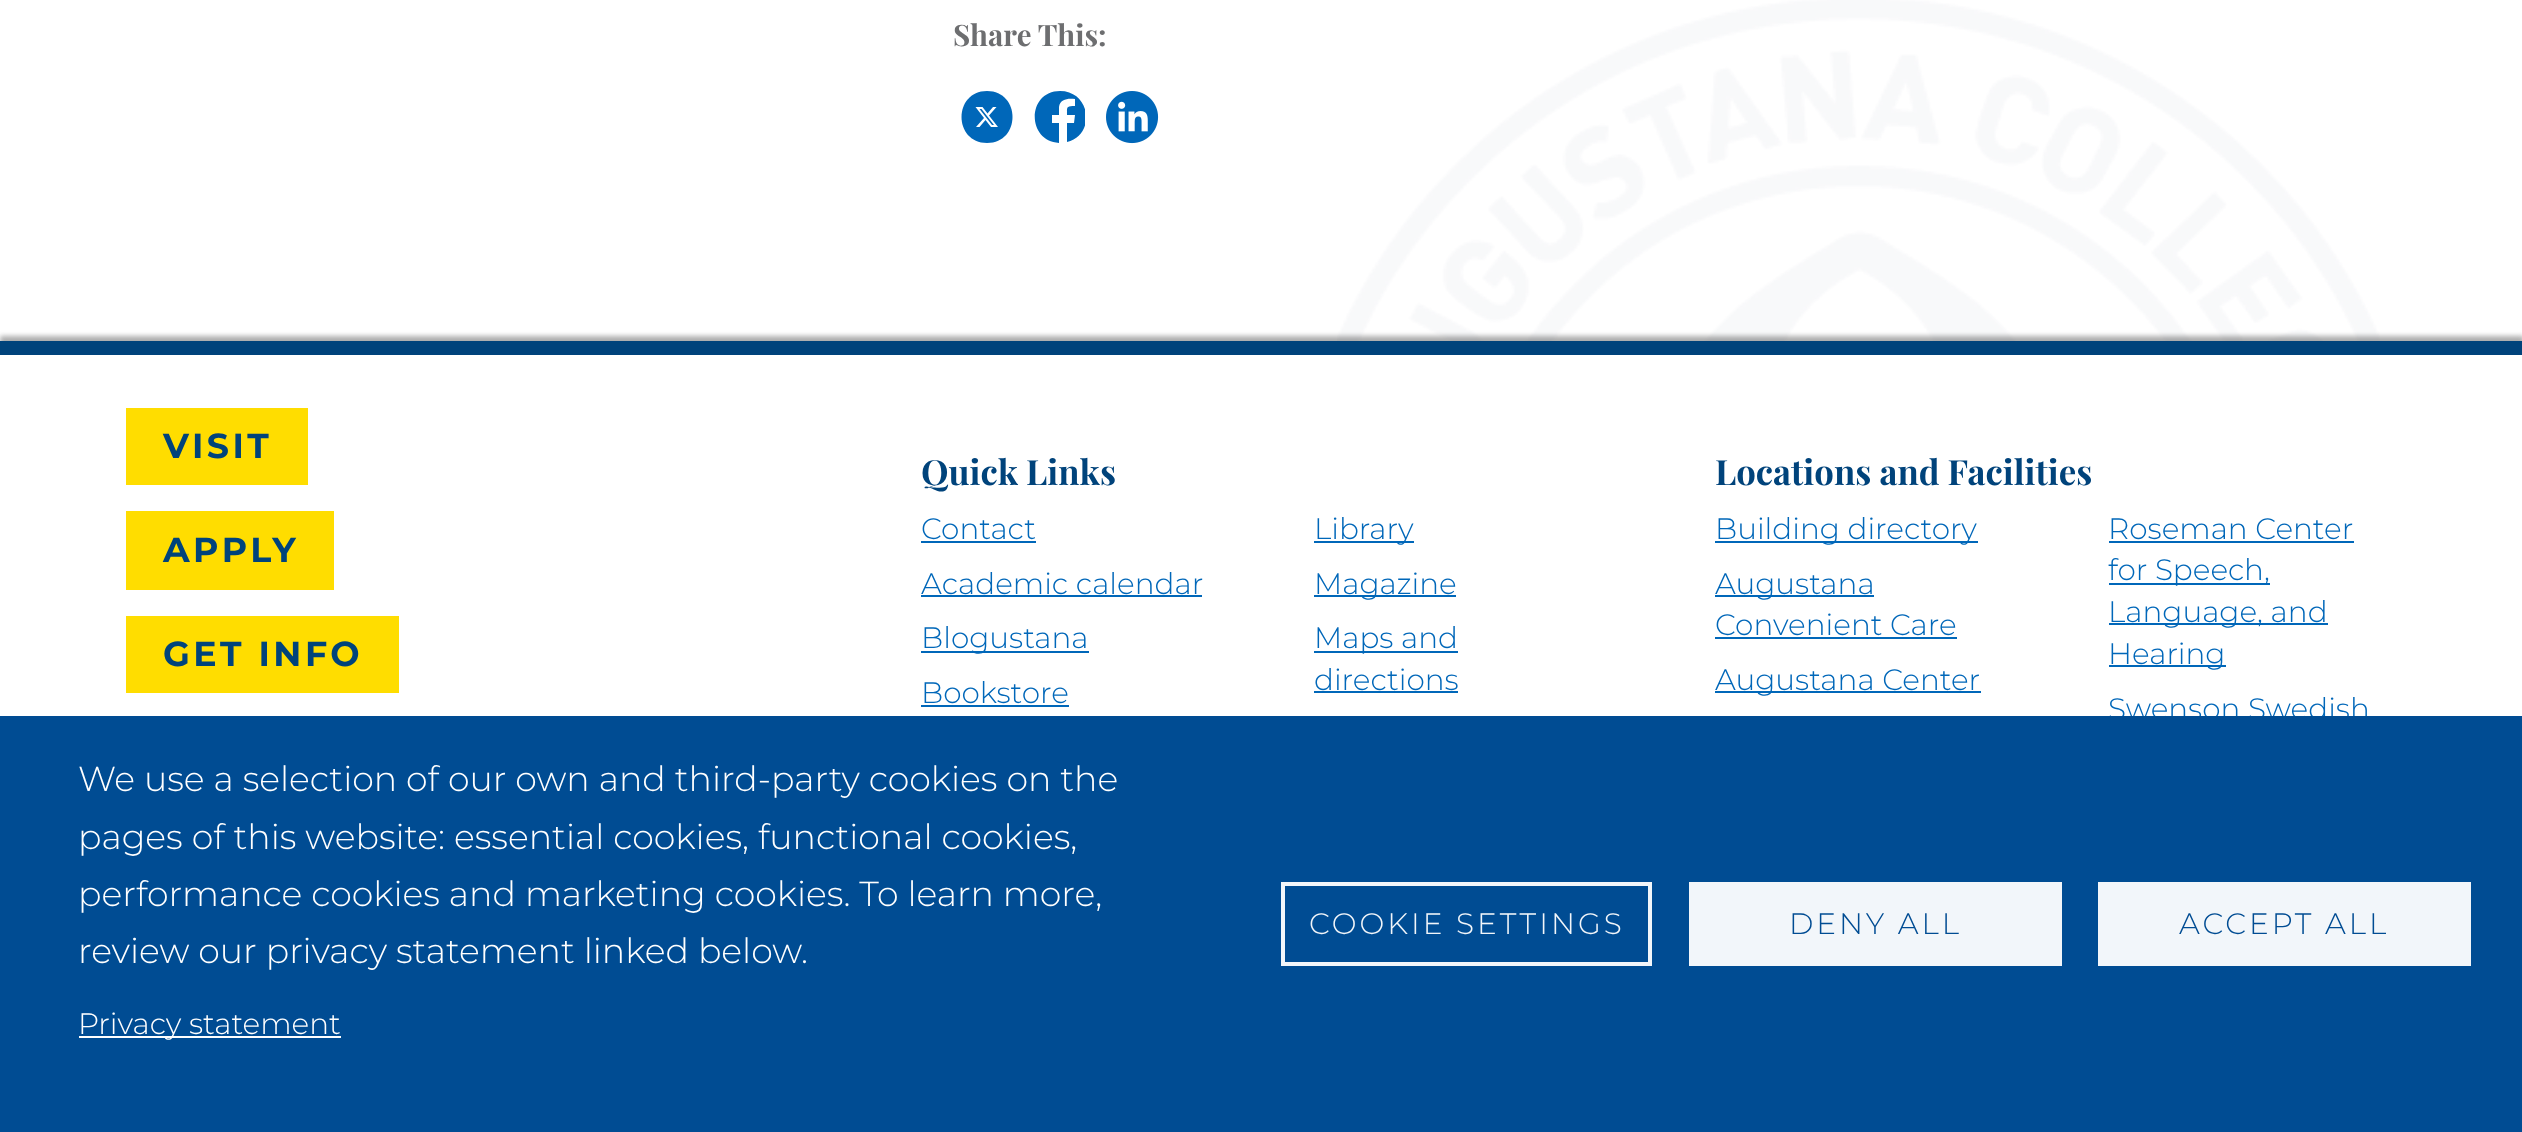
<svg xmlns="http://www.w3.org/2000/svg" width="2522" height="1132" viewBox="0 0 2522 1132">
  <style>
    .t1 { font: bold 29.5px Playfair Display; fill: #6d6e70; }
    .t2 { font: bold 34.75px Montserrat; letter-spacing: 3.5px; fill: #00437b; }
    .t3 { font: bold 34.75px Playfair Display; fill: #00437b; }
    .t4 { font: 300 29.5px Montserrat; fill: #0067b9; }
    .t5 { font: 300 34.75px Montserrat; fill: #fff; }
    .t6 { font: 300 29.5px Montserrat; fill: #fff; }
    .t7 { font: 300 29.5px Montserrat; letter-spacing: 3px; fill: #f2f6fa; }
    .t8 { font: 300 29.5px Montserrat; letter-spacing: 3px; fill: #004c93; }
  </style>
  <defs>
    <clipPath id="clip1"><rect x="1034" y="91" width="51" height="53"/></clipPath>
  </defs>
  <rect width="100%" height="100%" fill="#fff"/>
  <image x="1337" y="0" width="1043" height="341" href="images/1.png"/>
  <text x="953" y="46" class="t1">Share This:</text>
  <path d="M987 91C1021 91 1021 143 987 143C953 143 953 91 987 91Z" fill="#0067b9" fill-rule="evenodd"/>
  <path d="M993 107H996.5L989 115.5L998 127H991L985.5 120L979.5 127H976L984 118L975.5 107H982.5L987.5 113.5ZM992 125H994L981.5 109H979.5Z" fill="#fff"/>
  <g clip-path="url(#clip1)">
    <path d="M1060 91C1027 91 1026 141 1059 143V123H1052V115H1059V107C1060 99 1068 98 1075 99V106C1066 106 1067 107 1067 115H1075L1074 123H1067V142C1096 135 1091 91 1060 91Z" fill="#0067b9"/>
  </g>
  <image x="1106" y="91" width="53" height="53" href="images/2.png"/>
  <rect x="0" y="336" width="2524" height="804" fill="#33333366" filter="blur(2.5px)"/>
  <rect x="0" y="355" width="2522" height="361" fill="#fff"/>
  <rect x="0" y="341" width="2522" height="14" fill="#00437b"/>
  <rect x="126" y="408" width="182" height="77" fill="#fd0"/>
  <text x="163" y="458" class="t2">VISIT</text>
  <rect x="126" y="511" width="208" height="79" fill="#fd0"/>
  <text x="163" y="562" class="t2">APPLY</text>
  <rect x="126" y="616" width="273" height="77" fill="#fd0"/>
  <text x="163" y="666" class="t2">GET INFO</text>
  <text x="921" y="485" class="t3">Quick Links</text>
  <text x="921" y="539" class="t4">Contact</text>
  <rect x="921" y="541" width="115" height="2" fill="#0067b9"/>
  <rect x="1314" y="541" width="100" height="2" fill="#0067b9"/>
  <text x="1314" y="539" class="t4">Library</text>
  <text x="921" y="594" class="t4">Academic calendar</text>
  <rect x="921" y="595" width="281" height="2" fill="#0067b9"/>
  <rect x="1314" y="595" width="142" height="2" fill="#0067b9"/>
  <text x="1314" y="594" class="t4">Magazine</text>
  <rect x="921" y="651" width="168" height="2" fill="#0067b9"/>
  <text x="921" y="648" class="t4">Blogustana</text>
  <rect x="1314" y="651" width="144" height="2" fill="#0067b9"/>
  <text x="1314" y="648" class="t4">Maps and</text>
  <text x="1314" y="690" class="t4">directions</text>
  <rect x="1314" y="691" width="144" height="2" fill="#0067b9"/>
  <text x="921" y="703" class="t4">Bookstore</text>
  <rect x="921" y="705" width="148" height="2" fill="#0067b9"/>
  <text x="1715" y="485" class="t3">Locations and Facilities</text>
  <rect x="1715" y="541" width="263" height="2" fill="#0067b9"/>
  <text x="1715" y="539" class="t4">Building directory</text>
  <text x="2108" y="539" class="t4">Roseman Center</text>
  <rect x="2109" y="541" width="245" height="2" fill="#0067b9"/>
  <rect x="2109" y="583" width="161" height="2" fill="#0067b9"/>
  <text x="2108" y="580" class="t4">for Speech,</text>
  <rect x="2109" y="623" width="219" height="2" fill="#0067b9"/>
  <text x="2108" y="622" class="t4">Language, and</text>
  <rect x="2109" y="665" width="117" height="2" fill="#0067b9"/>
  <text x="2108" y="664" class="t4">Hearing</text>
  <rect x="1715" y="595" width="159" height="2" fill="#0067b9"/>
  <text x="1715" y="594" class="t4">Augustana</text>
  <text x="1715" y="635" class="t4">Convenient Care</text>
  <rect x="1715" y="637" width="242" height="2" fill="#0067b9"/>
  <rect x="1715" y="691" width="266" height="2" fill="#0067b9"/>
  <text x="1715" y="690" class="t4">Augustana Center</text>
  <text x="2108" y="719" class="t4">Swenson Swedish</text>
  <rect x="0" y="716" width="2522" height="416" fill="#004c93"/>
  <text x="78" y="791" class="t5">We use a selection of our own and third-party cookies on the</text>
  <text x="78" y="849" class="t5">pages of this website: essential cookies, functional cookies,</text>
  <text x="78" y="906" class="t5">performance cookies and marketing cookies. To learn more,</text>
  <text x="78" y="963" class="t5">review our privacy statement linked below.</text>
  <rect x="79" y="1036" width="262" height="2" fill="#fff"/>
  <text x="78" y="1034" class="t6">Privacy statement</text>
  <rect x="1283" y="884" width="367" height="80" fill="none" stroke="#f2f6fa" stroke-width="4"/>
  <text x="1309" y="934" class="t7">COOKIE SETTINGS</text>
  <rect x="1689" y="882" width="373" height="84" fill="#f2f6fa"/>
  <text x="1789" y="934" class="t8">DENY ALL</text>
  <rect x="2098" y="882" width="373" height="84" fill="#f2f6fa"/>
  <text x="2179" y="934" class="t8">ACCEPT ALL</text>
</svg>
